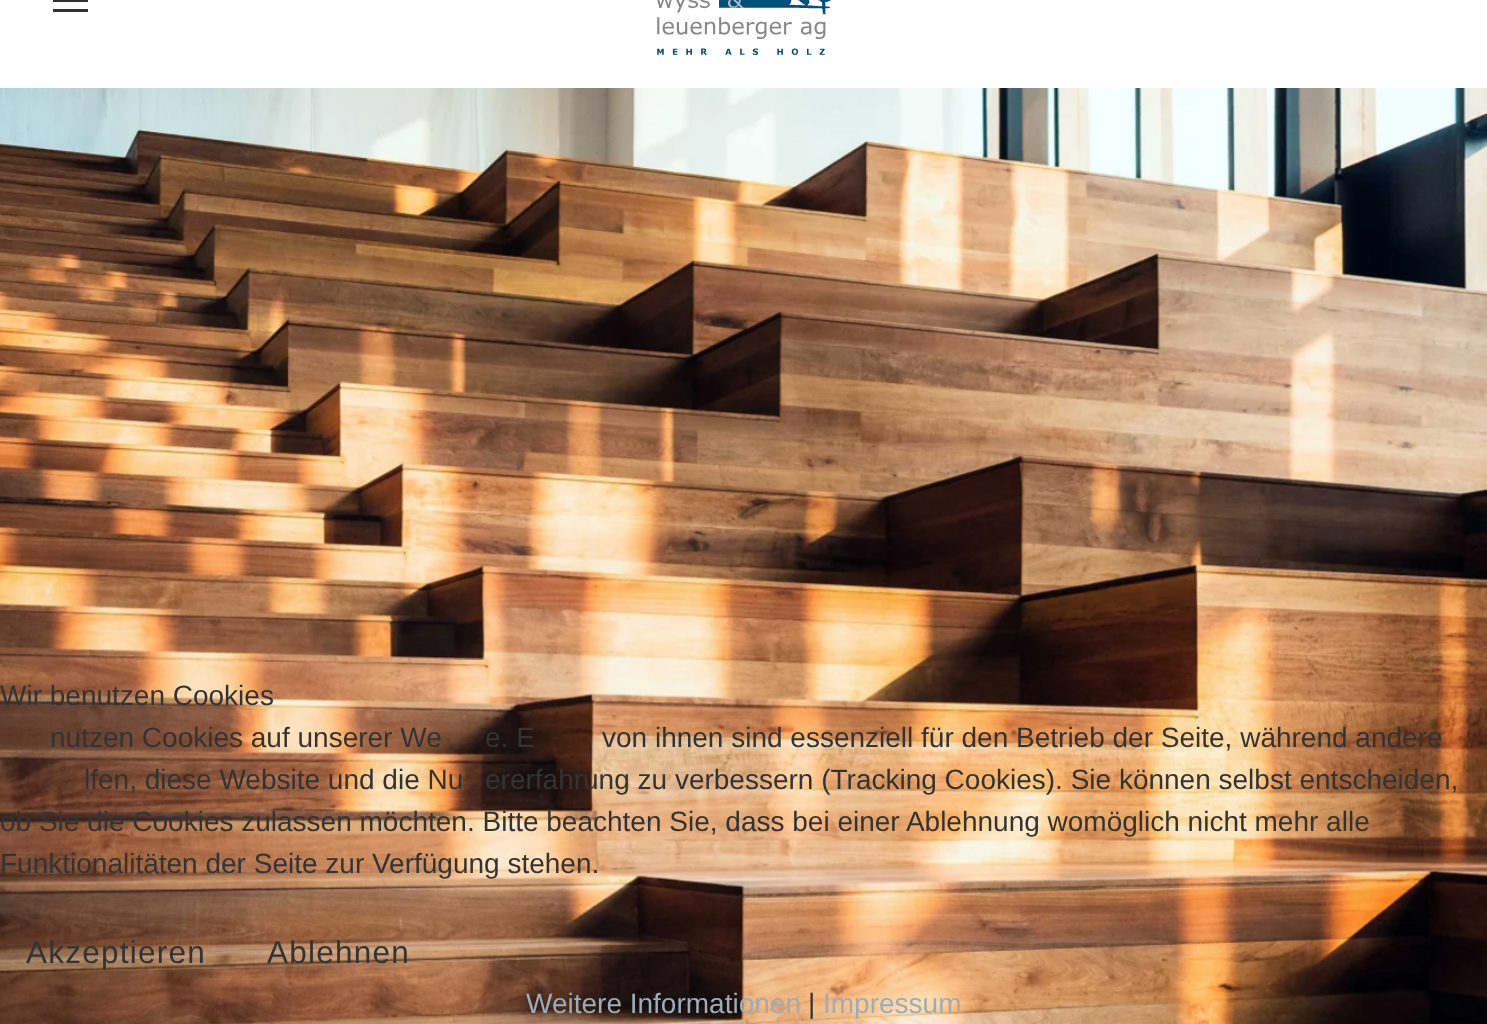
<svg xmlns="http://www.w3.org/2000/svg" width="1487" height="1024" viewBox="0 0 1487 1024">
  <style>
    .t1 { font: 28px Liberation Sans; fill: #333; }
    .t2 { font: 31.5px Liberation Sans; letter-spacing: 1.25px; fill: #333; }
    .t3 { font: 28px Liberation Sans; fill: #9eacb6; }
  </style>
  <rect width="100%" height="100%" fill="#fff"/>
  <rect x="53" y="0" width="35" height="2" fill="#333"/>
  <rect x="53" y="9" width="35" height="3" fill="#333"/>
  <image x="657" y="0" width="174" height="55" href="images/1.png"/>
  <image x="0" y="88" width="1487" height="936" href="images/2.png"/>
  <text x="0" y="705" class="t1">Wir benutzen Cookies</text>
  <text x="50" y="747" class="t1">nutzen Cookies auf unserer We</text>
  <text x="485" y="747" class="t1">e. E</text>
  <text x="602" y="747" class="t1">von ihnen sind essenziell für den Betrieb der Seite, während andere</text>
  <text x="84" y="789" class="t1">lfen, diese Website und die Nu</text>
  <text x="485" y="789" class="t1">ererfahrung zu verbessern (Tracking Cookies). Sie können selbst entscheiden,</text>
  <text x="0" y="831" class="t1">ob Sie die Cookies zulassen möchten. Bitte beachten Sie, dass bei einer Ablehnung womöglich nicht mehr alle</text>
  <text x="0" y="873" class="t1">Funktionalitäten der Seite zur Verfügung stehen.</text>
  <text x="26" y="963" class="t2">Akzeptieren</text>
  <text x="267" y="963" class="t2">Ablehnen</text>
  <text x="526" y="1013" class="t3">Weitere Informationen</text>
  <text x="808" y="1013" class="t1">|</text>
  <text x="823" y="1013" class="t3">Impressum</text>
</svg>
